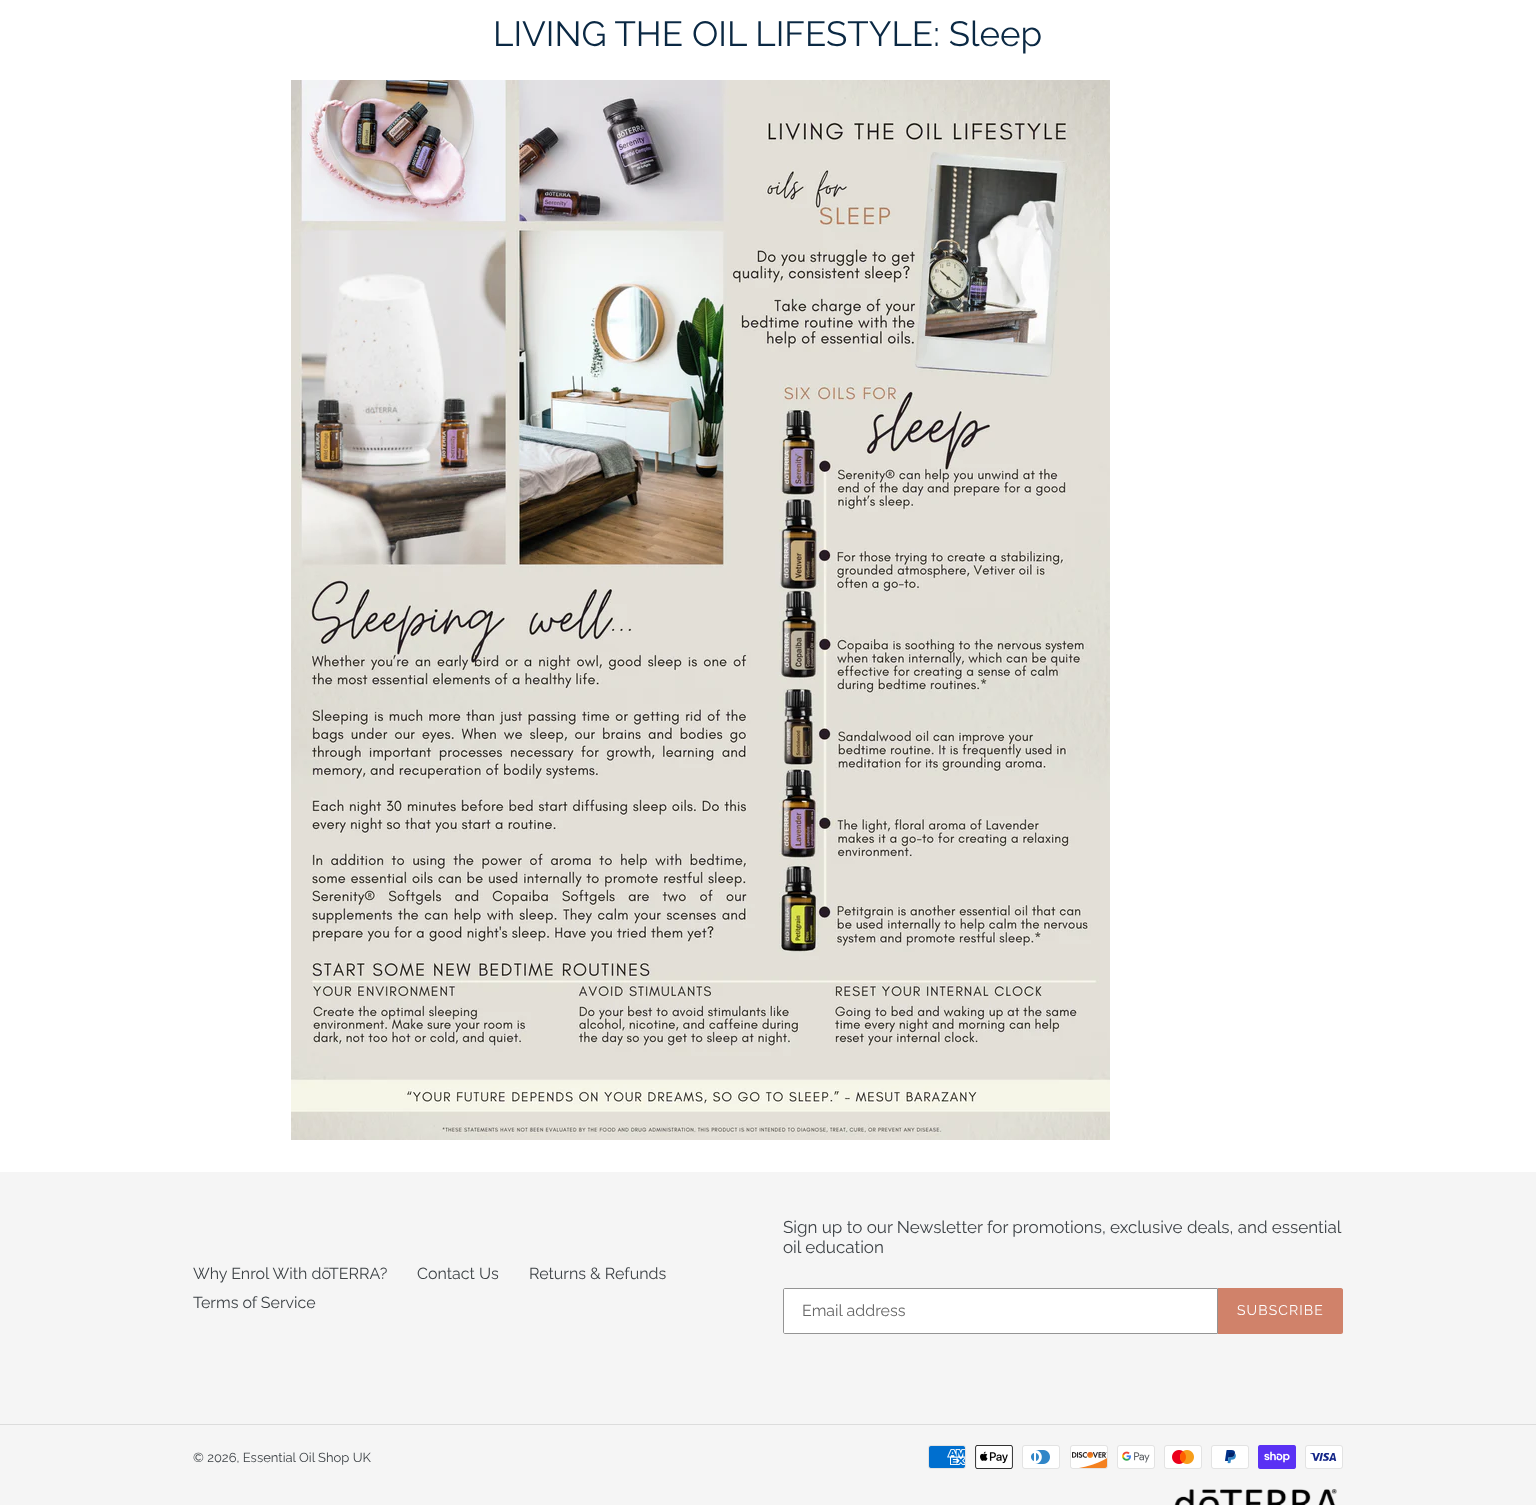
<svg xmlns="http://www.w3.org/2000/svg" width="1536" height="1505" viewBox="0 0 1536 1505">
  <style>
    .t1 { font: 35px Raleway; fill: #0a2843; }
    .t2 { font: 16px Raleway; fill: #3d4246; }
    .t3 { font: 17px Raleway; fill: #3d4246; }
    .t4 { font: 16px Raleway; fill: #666; }
    .t5 { font: 14px Raleway; letter-spacing: 1.1px; fill: #fff; }
    .t6 { font: 13px Raleway; fill: #3d4246; }
  </style>
  <rect width="100%" height="100%" fill="#fff"/>
  <text x="493" y="46" class="t1">LIVING THE OIL LIFESTYLE: Sleep</text>
  <image x="291" y="80" width="819" height="1060" href="images/1.png"/>
  <rect x="0" y="1172" width="1536" height="333" fill="#f5f5f5"/>
  <text x="193" y="1279" class="t2">Why Enrol With dōTERRA?</text>
  <text x="417" y="1279" class="t2">Contact Us</text>
  <text x="529" y="1279" class="t2">Returns &amp; Refunds</text>
  <text x="193" y="1308" class="t2">Terms of Service</text>
  <text x="783" y="1233" class="t3">Sign up to our Newsletter for promotions, exclusive deals, and essential</text>
  <text x="783" y="1253" class="t3">oil education</text>
  <path d="M785 1288.5H1217.5V1333.5H785C784 1333.5 783.5 1333 783.5 1332V1290C783.5 1289 784 1288.5 785 1288.5Z" fill="#fff" stroke="#949494"/>
  <text x="802" y="1316" class="t4">Email address</text>
  <path d="M1218 1288H1341C1342 1288 1343 1289 1343 1290V1332C1343 1333 1342 1334 1341 1334H1218Z" fill="#d0826a"/>
  <text x="1237" y="1315" class="t5">SUBSCRIBE</text>
  <rect x="0" y="1424" width="1536" height="1" fill="#dcdcdc"/>
  <text x="193" y="1462" class="t6">© 2026, Essential Oil Shop UK</text>
  <image x="928" y="1445" width="38" height="24" href="images/2.png"/>
  <image x="975" y="1445" width="38" height="24" href="images/3.png"/>
  <image x="1022" y="1445" width="38" height="24" href="images/4.png"/>
  <image x="1070" y="1445" width="38" height="24" href="images/5.png"/>
  <image x="1117" y="1445" width="38" height="24" href="images/6.png"/>
  <image x="1164" y="1445" width="38" height="24" href="images/7.png"/>
  <image x="1211" y="1445" width="38" height="24" href="images/8.png"/>
  <image x="1258" y="1445" width="38" height="24" href="images/9.png"/>
  <image x="1305" y="1445" width="38" height="24" href="images/10.png"/>
  <image x="1174" y="1489" width="163" height="16" href="images/11.png"/>
</svg>
